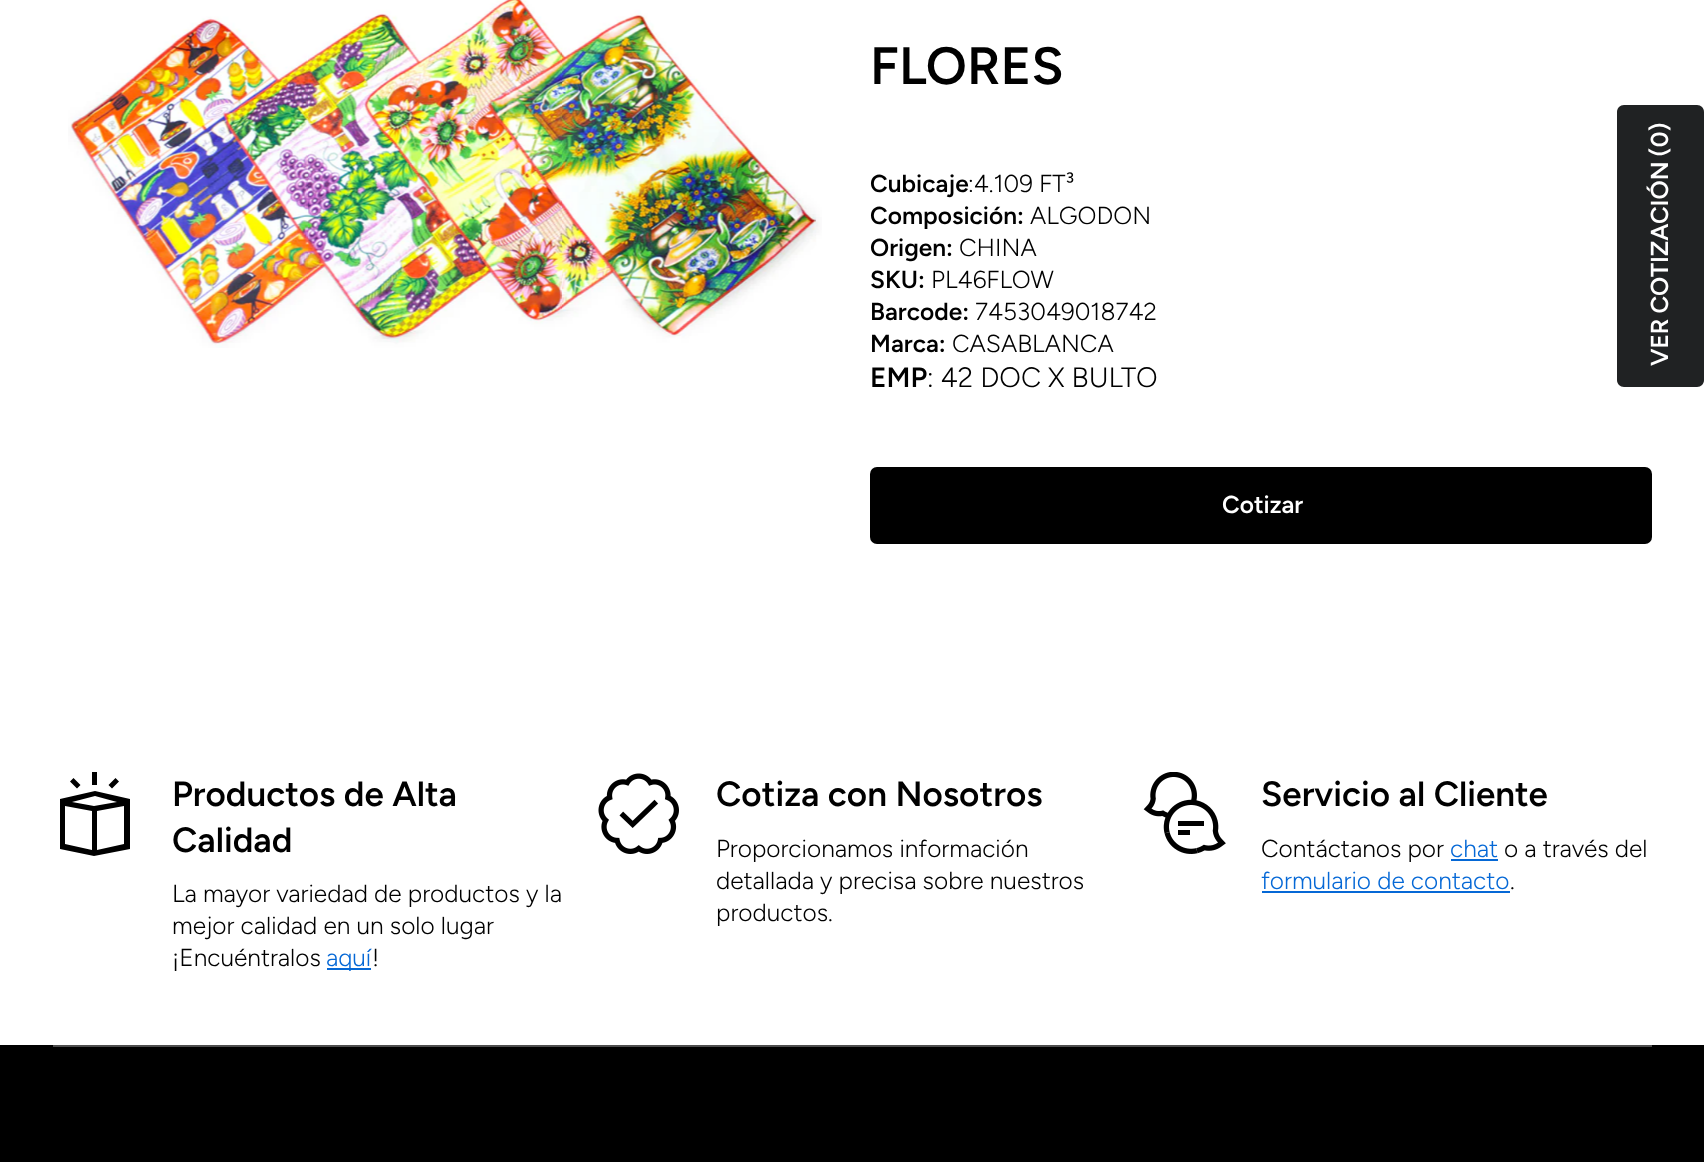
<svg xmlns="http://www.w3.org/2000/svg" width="1704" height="1162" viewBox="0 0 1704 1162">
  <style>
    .t1 { font: 600 52.5px Figtree; fill: #000; }
    .t2 { font: 600 24.5px Figtree; fill: #000; }
    .t3 { font: 300 24.5px Figtree; fill: #000; }
    .t4 { font: 600 28px Figtree; fill: #000; }
    .t5 { font: 300 28px Figtree; fill: #000; }
    .t6 { font: 600 24.5px Figtree; fill: #fff; }
    .t7 { font: 600 35px Figtree; fill: #000; }
    .t8 { font: 300 24.5px Figtree; fill: #0568d6; }
  </style>
  <rect width="100%" height="100%" fill="#fff"/>
  <image x="68" y="0" width="754" height="348" href="images/1.png"/>
  <text x="870" y="84" class="t1">FLORES</text>
  <text x="870" y="192" class="t2">Cubicaje</text>
  <text x="968" y="192" class="t3">:4.109 FT³</text>
  <text x="870" y="224" class="t2">Composición:</text>
  <text x="1030" y="224" class="t3">ALGODON</text>
  <text x="870" y="256" class="t2">Origen:</text>
  <text x="959" y="256" class="t3">CHINA</text>
  <text x="870" y="288" class="t2">SKU:</text>
  <text x="931" y="288" class="t3">PL46FLOW</text>
  <text x="870" y="320" class="t2">Barcode:</text>
  <text x="975" y="320" class="t3">7453049018742</text>
  <text x="870" y="352" class="t2">Marca:</text>
  <text x="952" y="352" class="t3">CASABLANCA</text>
  <text x="870" y="387" class="t4">EMP</text>
  <text x="927" y="387" class="t5">: 42 DOC X BULTO</text>
  <rect x="870" y="467" width="782" height="77" rx="7" fill="#000"/>
  <text x="1222" y="513" class="t6">Cotizar</text>
  <path d="M1617 380V112C1617 108 1620 105 1624 105H1697C1701 105 1704 108 1704 112V380C1704 384 1701 387 1697 387H1624C1620 387 1617 384 1617 380Z" fill="#202223"/>
  <text x="1668" y="366" transform="rotate(-90 1668 366)" word-spacing="-1" class="t6">VER COTIZACIÓN (0)</text>
  <rect x="92" y="772" width="5" height="13" fill="#000"/>
  <path d="M80.5 785L73.5 778L70 781.5L77 788.5ZM115.5 778L108.5 785L112 788.5L119 781.5Z" fill="#000"/>
  <path d="M95 791L130 799V849L94 856L60 849V799ZM95 796L117 802L94 806L72 802ZM92 811L65 806V844L92 850ZM97 850L124 844V806L97 811Z" fill="#000" fill-rule="evenodd"/>
  <text x="172" y="806" class="t7">Productos de Alta</text>
  <text x="172" y="852" class="t7">Calidad</text>
  <text x="172" y="902" class="t3">La mayor variedad de productos y la</text>
  <text x="172" y="934" class="t3">mejor calidad en un solo lugar</text>
  <text x="172" y="966" class="t3">¡Encuéntralos</text>
  <rect x="327" y="968" width="44" height="2" fill="#0568d6"/>
  <text x="326" y="966" class="t8">aquí</text>
  <text x="372" y="966" class="t3">!</text>
  <image x="598" y="773" width="81" height="81" href="images/2.png"/>
  <text x="716" y="806" class="t7">Cotiza con Nosotros</text>
  <text x="716" y="857" class="t3">Proporcionamos información</text>
  <text x="716" y="889" class="t3">detallada y precisa sobre nuestros</text>
  <text x="716" y="921" class="t3">productos.</text>
  <image x="1143" y="772" width="83" height="82" href="images/3.png"/>
  <text x="1261" y="806" class="t7">Servicio al Cliente</text>
  <text x="1261" y="857" class="t3">Contáctanos por</text>
  <text x="1450" y="857" class="t8">chat</text>
  <rect x="1451" y="859" width="47" height="2" fill="#0568d6"/>
  <text x="1504" y="857" class="t3">o a través del</text>
  <text x="1261" y="889" class="t8">formulario de contacto</text>
  <rect x="1262" y="891" width="248" height="2" fill="#0568d6"/>
  <text x="1510" y="889" class="t3">.</text>
  <rect x="0" y="1045" width="1704" height="117" fill="#000"/>
  <rect x="53" y="1045" width="1599" height="2" fill="#4d4d4d"/>
</svg>
